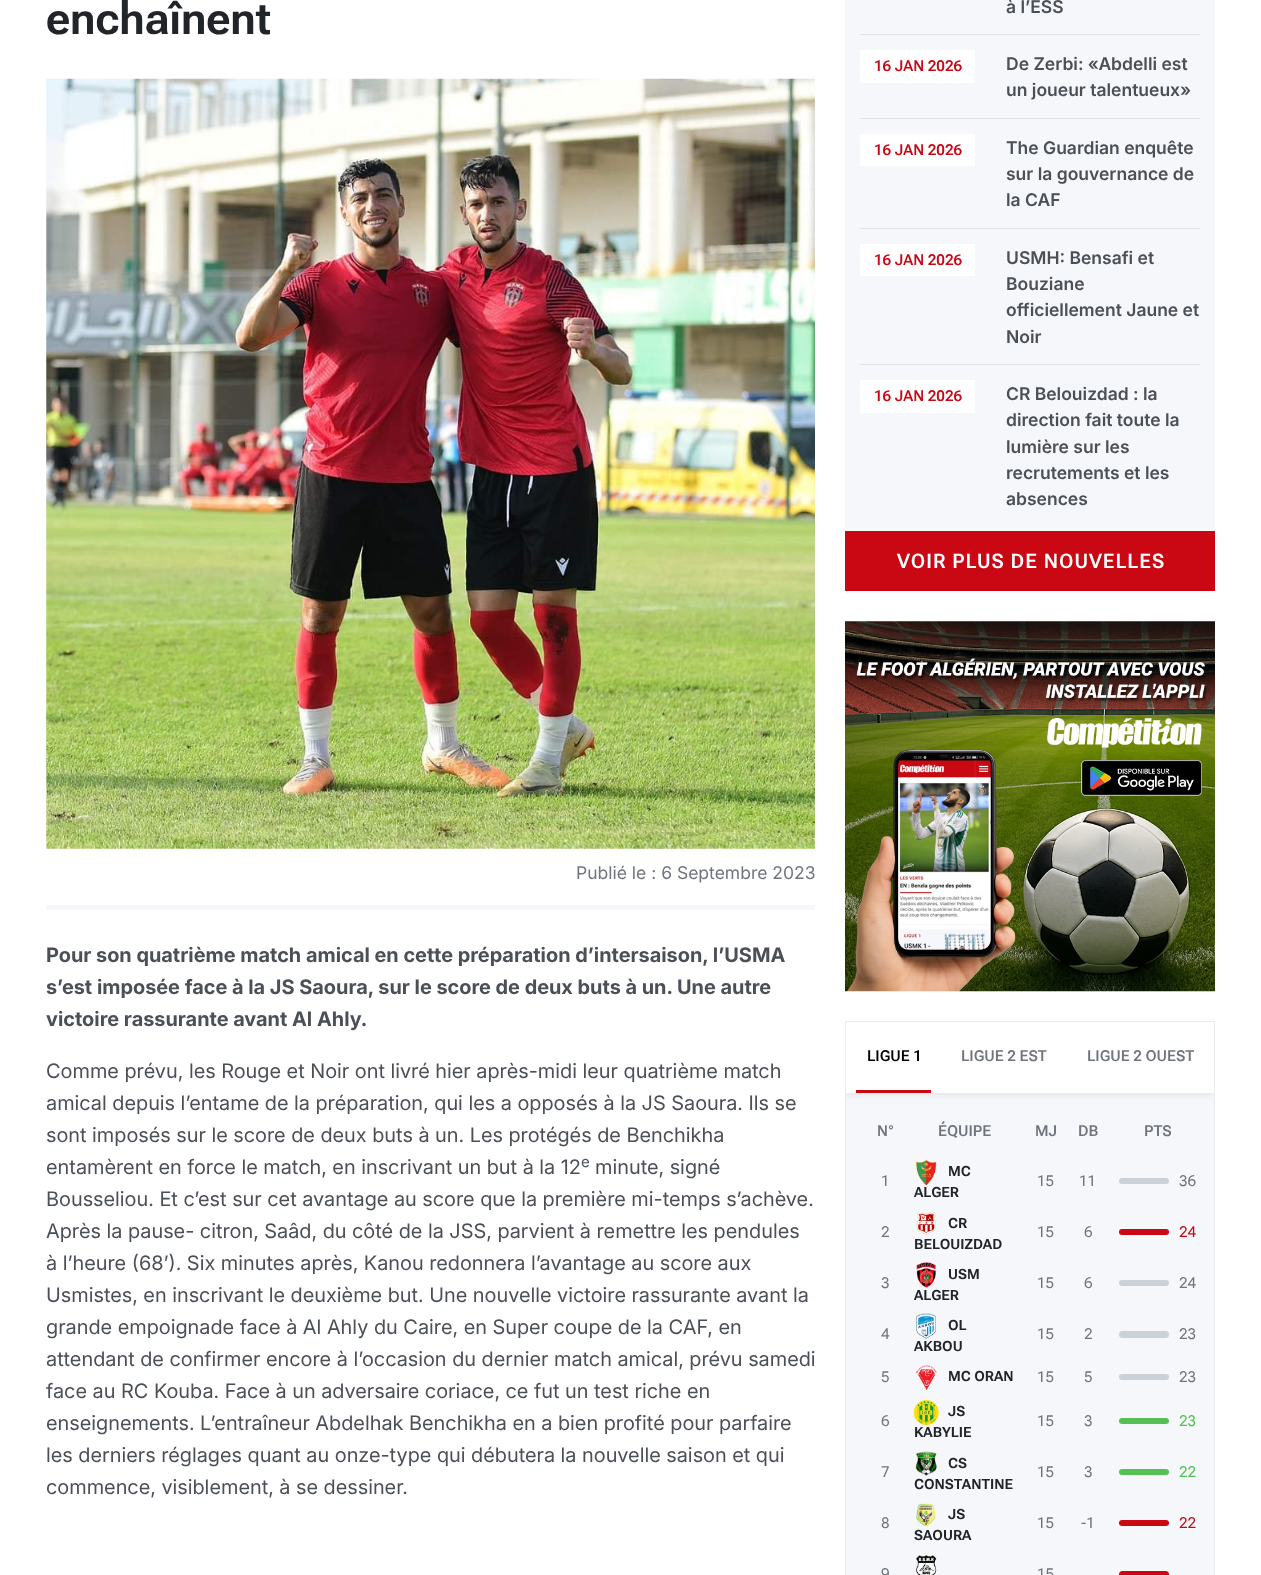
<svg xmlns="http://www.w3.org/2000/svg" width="1261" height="1575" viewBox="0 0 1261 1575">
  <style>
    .t1 { font: 600 46.5px 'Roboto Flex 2'; fill: #212429; }
    .t2 { font: 17.5px Inter; fill: #70757d; }
    .t3 { font: bold 20px Inter; fill: #4b5057; }
    .t4 { font: 20px 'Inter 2'; fill: #4b5057; }
    .t5 { font: 15px Inter; fill: #4b5057; }
    .t6 { font: 600 17.5px Inter; fill: #4b5057; }
    .t7 { font: 600 15px 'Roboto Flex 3'; fill: #ca0813; }
    .t8 { font: 600 20px Roboto Flex; letter-spacing: 1px; fill: #fff; }
    .t9 { font: 600 15px 'Roboto Flex 3'; fill: #000; }
    .t10 { font: 600 15px 'Roboto Flex 3'; fill: #70757d; }
    .t11 { font: 15px Roboto Flex; fill: #70757d; }
    .t12 { font: bold 14px Roboto Flex; fill: #212429; }
    .t13 { font: 15px Roboto Flex; fill: #ca0813; }
    .t14 { font: 15px Roboto Flex; fill: #56c054; }
  </style>
  <defs>
    <clipPath id="clip1"><rect x="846" y="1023" width="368" height="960"/></clipPath>
  </defs>
  <rect width="100%" height="100%" fill="#fff"/>
  <text x="46" y="34" class="t1">enchaînent</text>
  <image x="46" y="78" width="769" height="771" href="images/1.png"/>
  <text x="576" y="879" class="t2">Publié le : 6 Septembre 2023</text>
  <rect x="46" y="905" width="769" height="5" fill="#f5f7fa"/>
  <text x="46" y="962" class="t3">Pour son quatrième match amical en cette préparation d’intersaison, l’USMA</text>
  <text x="46" y="994" class="t3">s’est imposée face à la JS Saoura, sur le score de deux buts à un. Une autre</text>
  <text x="46" y="1026" class="t3">victoire rassurante avant Al Ahly.</text>
  <text x="46" y="1078" class="t4">Comme prévu, les Rouge et Noir ont livré hier après-midi leur quatrième match</text>
  <text x="46" y="1110" class="t4">amical depuis l’entame de la préparation, qui les a opposés à la JS Saoura. Ils se</text>
  <text x="46" y="1142" class="t4">sont imposés sur le score de deux buts à un. Les protégés de Benchikha</text>
  <text x="46" y="1174" class="t4">entamèrent en force le match, en inscrivant un but à la 12</text>
  <text x="581" y="1167" class="t5">e</text>
  <text x="595" y="1174" class="t4">minute, signé</text>
  <text x="46" y="1206" class="t4">Bousseliou. Et c’est sur cet avantage au score que la première mi-temps s’achève.</text>
  <text x="46" y="1238" class="t4">Après la pause- citron, Saâd, du côté de la JSS, parvient à remettre les pendules</text>
  <text x="46" y="1270" class="t4">à l’heure (68’). Six minutes après, Kanou redonnera l’avantage au score aux</text>
  <text x="46" y="1302" class="t4">Usmistes, en inscrivant le deuxième but. Une nouvelle victoire rassurante avant la</text>
  <text x="46" y="1334" class="t4">grande empoignade face à Al Ahly du Caire, en Super coupe de la CAF, en</text>
  <text x="46" y="1366" class="t4">attendant de confirmer encore à l’occasion du dernier match amical, prévu samedi</text>
  <text x="46" y="1398" class="t4">face au RC Kouba. Face à un adversaire coriace, ce fut un test riche en</text>
  <text x="46" y="1430" class="t4">enseignements. L’entraîneur Abdelhak Benchikha en a bien profité pour parfaire</text>
  <text x="46" y="1462" class="t4">les derniers réglages quant au onze-type qui débutera la nouvelle saison et qui</text>
  <text x="46" y="1494" class="t4">commence, visiblement, à se dessiner.</text>
  <rect x="845" y="0" width="370" height="531" fill="#f5f7fa"/>
  <text x="1006" y="13" class="t6">à l’ESS</text>
  <rect x="860" y="34" width="340" height="1" fill="#dfe1e6"/>
  <rect x="860" y="50" width="115" height="33" fill="#fff"/>
  <text x="874" y="71" class="t7">16 JAN 2026</text>
  <text x="1006" y="70" class="t6">De Zerbi: «Abdelli est</text>
  <text x="1006" y="96" class="t6">un joueur talentueux»</text>
  <rect x="860" y="118" width="340" height="1" fill="#dfe1e6"/>
  <rect x="860" y="134" width="115" height="32" fill="#fff"/>
  <text x="874" y="155" class="t7">16 JAN 2026</text>
  <text x="1006" y="154" class="t6">The Guardian enquête</text>
  <text x="1006" y="180" class="t6">sur la gouvernance de</text>
  <text x="1006" y="206" class="t6">la CAF</text>
  <rect x="860" y="228" width="340" height="1" fill="#dfe1e6"/>
  <rect x="860" y="244" width="115" height="32" fill="#fff"/>
  <text x="874" y="265" class="t7">16 JAN 2026</text>
  <text x="1006" y="264" class="t6">USMH: Bensafi et</text>
  <text x="1006" y="290" class="t6">Bouziane</text>
  <text x="1006" y="316" class="t6">officiellement Jaune et</text>
  <text x="1006" y="343" class="t6">Noir</text>
  <rect x="860" y="364" width="340" height="1" fill="#dfe1e6"/>
  <rect x="860" y="380" width="115" height="33" fill="#fff"/>
  <text x="874" y="401" class="t7">16 JAN 2026</text>
  <text x="1006" y="400" class="t6">CR Belouizdad : la</text>
  <text x="1006" y="426" class="t6">direction fait toute la</text>
  <text x="1006" y="453" class="t6">lumière sur les</text>
  <text x="1006" y="479" class="t6">recrutements et les</text>
  <text x="1006" y="505" class="t6">absences</text>
  <rect x="845" y="531" width="370" height="60" fill="#ca0813"/>
  <text x="897" y="568" class="t8">VOIR PLUS DE NOUVELLES</text>
  <image x="845" y="621" width="370" height="371" href="images/2.png"/>
  <rect x="845.5" y="1021.5" width="369" height="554" fill="none" stroke="#e9ebf0"/>
  <rect x="846" y="1093" width="368" height="482" fill="#f5f7fa"/>
  <g clip-path="url(#clip1)">
    <rect x="846" y="1025" width="368" height="70" fill="#4b50571a" filter="blur(3px)"/>
  </g>
  <rect x="846" y="1023" width="368" height="70" fill="#fff"/>
  <rect x="856" y="1090" width="75" height="3" fill="#ca0813"/>
  <text x="867" y="1061" class="t9">LIGUE 1</text>
  <text x="961" y="1061" class="t10">LIGUE 2 EST</text>
  <text x="1087" y="1061" class="t10">LIGUE 2 OUEST</text>
  <text x="877" y="1136" class="t10">N°</text>
  <text x="938" y="1136" class="t10">ÉQUIPE</text>
  <text x="1035" y="1136" class="t10">MJ</text>
  <text x="1078" y="1136" class="t10">DB</text>
  <text x="1144" y="1136" class="t10">PTS</text>
  <text x="881" y="1186" class="t11">1</text>
  <image x="915" y="1160" width="22" height="25" href="images/3.png"/>
  <text x="948" y="1176" class="t12">MC</text>
  <text x="914" y="1197" class="t12">ALGER</text>
  <text x="1037" y="1186" class="t11">15</text>
  <text x="1079" y="1186" class="t11">11</text>
  <rect x="1119" y="1178" width="50" height="6" rx="3" fill="#ccd1d9"/>
  <text x="1179" y="1186" class="t11">36</text>
  <text x="881" y="1237" class="t11">2</text>
  <image x="916" y="1212" width="20" height="23" href="images/4.png"/>
  <text x="948" y="1228" class="t12">CR</text>
  <text x="914" y="1249" class="t12">BELOUIZDAD</text>
  <text x="1037" y="1237" class="t11">15</text>
  <text x="1084" y="1237" class="t11">6</text>
  <rect x="1119" y="1229" width="50" height="6" rx="3" fill="#ca0813"/>
  <text x="1179" y="1237" class="t13">24</text>
  <text x="881" y="1288" class="t11">3</text>
  <image x="916" y="1262" width="20" height="26" href="images/5.png"/>
  <text x="948" y="1279" class="t12">USM</text>
  <text x="914" y="1300" class="t12">ALGER</text>
  <text x="1037" y="1288" class="t11">15</text>
  <text x="1084" y="1288" class="t11">6</text>
  <rect x="1119" y="1280" width="50" height="6" rx="3" fill="#ccd1d9"/>
  <text x="1179" y="1288" class="t11">24</text>
  <text x="881" y="1339" class="t11">4</text>
  <image x="916" y="1313" width="20" height="26" href="images/6.png"/>
  <text x="948" y="1330" class="t12">OL</text>
  <text x="914" y="1351" class="t12">AKBOU</text>
  <text x="1037" y="1339" class="t11">15</text>
  <text x="1084" y="1339" class="t11">2</text>
  <rect x="1119" y="1331" width="50" height="7" rx="3.5" fill="#ccd1d9"/>
  <text x="1179" y="1339" class="t11">23</text>
  <text x="881" y="1382" class="t11">5</text>
  <image x="916" y="1365" width="21" height="25" href="images/7.png"/>
  <text x="948" y="1381" class="t12">MC ORAN</text>
  <text x="1037" y="1382" class="t11">15</text>
  <text x="1084" y="1382" class="t11">5</text>
  <rect x="1119" y="1374" width="50" height="6" rx="3" fill="#ccd1d9"/>
  <text x="1179" y="1382" class="t11">23</text>
  <text x="881" y="1426" class="t11">6</text>
  <image x="913" y="1400" width="26" height="25" href="images/8.png"/>
  <text x="948" y="1416" class="t12">JS</text>
  <text x="914" y="1437" class="t12">KABYLIE</text>
  <text x="1037" y="1426" class="t11">15</text>
  <text x="1084" y="1426" class="t11">3</text>
  <rect x="1119" y="1418" width="50" height="6" rx="3" fill="#56c054"/>
  <text x="1179" y="1426" class="t14">23</text>
  <text x="881" y="1477" class="t11">7</text>
  <image x="915" y="1451" width="22" height="25" href="images/9.png"/>
  <text x="948" y="1468" class="t12">CS</text>
  <text x="914" y="1489" class="t12">CONSTANTINE</text>
  <text x="1037" y="1477" class="t11">15</text>
  <text x="1084" y="1477" class="t11">3</text>
  <rect x="1119" y="1469" width="50" height="6" rx="3" fill="#56c054"/>
  <text x="1179" y="1477" class="t14">22</text>
  <text x="881" y="1528" class="t11">8</text>
  <image x="916" y="1503" width="20" height="24" href="images/10.png"/>
  <text x="948" y="1519" class="t12">JS</text>
  <text x="914" y="1540" class="t12">SAOURA</text>
  <text x="1037" y="1528" class="t11">15</text>
  <text x="1081" y="1528" class="t11">-1</text>
  <rect x="1119" y="1520" width="50" height="6" rx="3" fill="#ca0813"/>
  <text x="1179" y="1528" class="t13">22</text>
  <text x="881" y="1579" class="t11">9</text>
  <image x="915" y="1555" width="22" height="20" href="images/11.png"/>
  <text x="1037" y="1579" class="t11">15</text>
  <rect x="1119" y="1571" width="50" height="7" rx="3.5" fill="#ca0813"/>
</svg>
